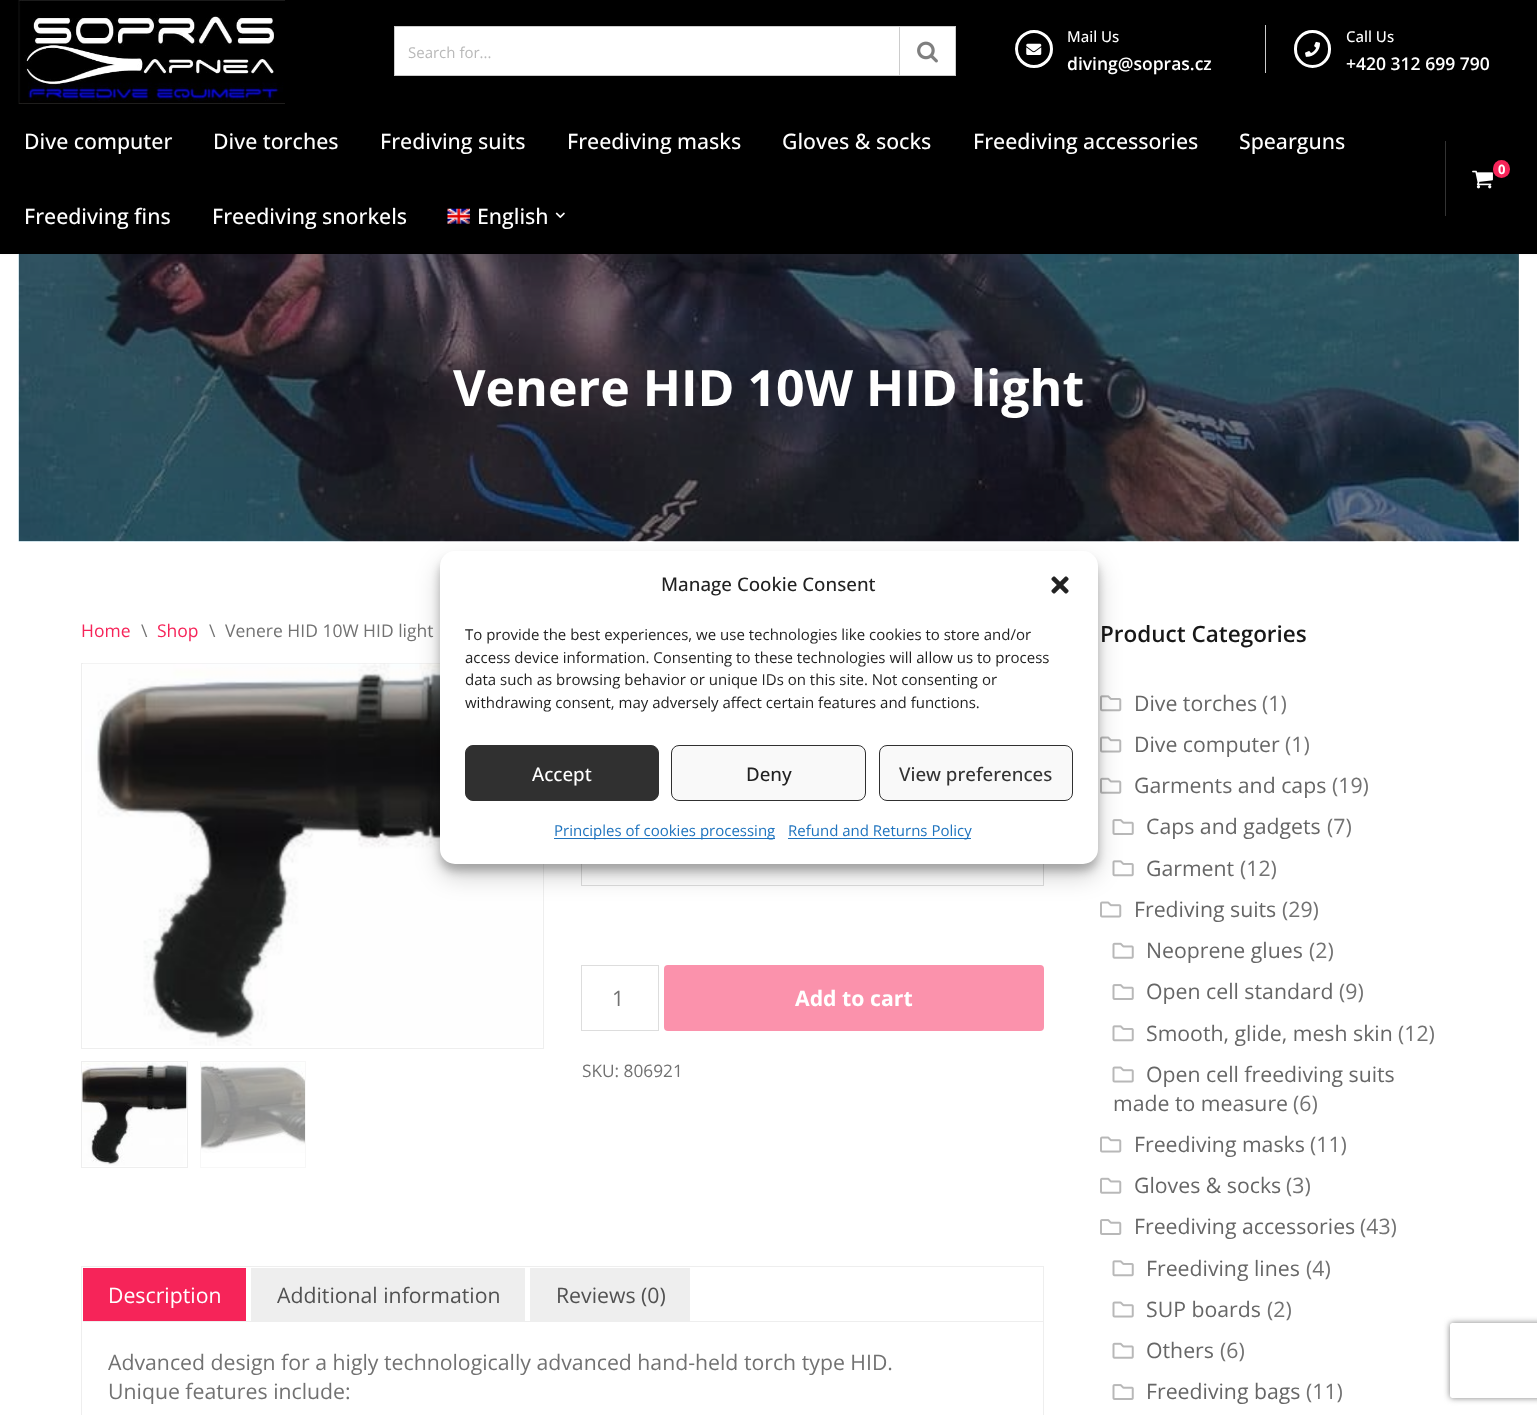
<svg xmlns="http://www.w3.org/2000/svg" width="1537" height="1415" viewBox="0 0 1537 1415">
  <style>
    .t1 { font: 15px Open Sans; fill: #b9b9b9; }
    .t2 { font: 500 15px Open Sans; fill: #fff; }
    .t3 { font: 600 17.5px Open Sans; fill: #fff; }
    .t4 { font: 500 21.25px Open Sans; fill: #fff; }
    .t5 { font: bold 13px Open Sans; fill: #fff; }
    .t6 { font: bold 50px Open Sans; fill: #fff; }
    .t7 { font: 17.5px Open Sans; fill: #f62459; }
    .t8 { font: 17.5px Open Sans; fill: #727272; }
    .t9 { font: 21.25px Open Sans; fill: #727272; }
    .t10 { font: bold 21.25px Open Sans; fill: #fff; }
    .t11 { font: 17.25px Open Sans; fill: #727272; }
    .t12 { font: 21.25px Open Sans; fill: #fff; }
    .t13 { font: 21.25px Open Sans; fill: #515151; }
    .t14 { font: 600 22.5px Open Sans; fill: #181818; }
    .t15 { font: 21.25px Open Sans; fill: #666; }
    .t16 { font: 500 18.75px Open Sans; fill: #222; }
    .t17 { font: 15px Open Sans; fill: #222; }
    .t18 { font: 500 18.75px Open Sans; fill: #fff; }
    .t19 { font: 500 18.75px Open Sans; fill: #333; }
    .t20 { font: 15px Open Sans; fill: #1e73be; }
  </style>
  <defs>
    <clipPath id="clip1"><path d="M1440 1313H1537V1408H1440ZM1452.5 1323H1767.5C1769 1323 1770 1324 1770 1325.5V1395.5C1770 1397 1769 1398 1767.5 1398H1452.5C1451 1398 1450 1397 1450 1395.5V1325.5C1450 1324 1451 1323 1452.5 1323Z" clip-rule="evenodd"/></clipPath>
  </defs>
  <rect width="100%" height="100%" fill="#fff"/>
  <rect x="0" y="-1" width="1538" height="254" fill="#0000001a" filter="blur(2px)"/>
  <rect x="0" y="0" width="1537" height="254" fill="#000"/>
  <image x="18" y="0" width="267" height="104" href="images/1.png"/>
  <rect x="394.5" y="26.5" width="505" height="49" fill="#fff" stroke="#ccc"/>
  <text x="408" y="58" class="t1">Search for...</text>
  <rect x="900" y="27" width="55" height="48" fill="#fff"/>
  <rect x="900" y="26" width="56" height="1" fill="#ccc"/>
  <rect x="955" y="26" width="1" height="50" fill="#ccc"/>
  <rect x="900" y="75" width="56" height="1" fill="#ccc"/>
  <image x="917" y="41" width="21" height="22" href="images/2.png"/>
  <circle cx="1034" cy="49" r="17.5" fill="none" stroke="#fff" stroke-width="3"/>
  <image x="1026" y="43" width="16" height="12" href="images/3.png"/>
  <text x="1067" y="42" class="t2">Mail Us</text>
  <text x="1067" y="70" class="t3">diving@sopras.cz</text>
  <rect x="1265" y="25" width="1" height="48" fill="#ccc"/>
  <rect x="1295.5" y="31.5" width="34" height="35" rx="17" fill="none" stroke="#fff" stroke-width="3"/>
  <image x="1305" y="41" width="15" height="16" href="images/4.png"/>
  <text x="1346" y="42" class="t2">Call Us</text>
  <text x="1346" y="70" class="t3">+420 312 699 790</text>
  <image x="18" y="253" width="1501" height="289" href="images/8.png"/>
  <rect x="19" y="253" width="1500" height="1" fill="#000"/>
  <text x="24" y="149" class="t4">Dive computer</text>
  <text x="213" y="149" class="t4">Dive torches</text>
  <text x="380" y="149" class="t4">Frediving suits</text>
  <text x="567" y="149" class="t4">Freediving masks</text>
  <text x="782" y="149" class="t4">Gloves &amp; socks</text>
  <text x="973" y="149" class="t4">Freediving accessories</text>
  <text x="1239" y="149" class="t4">Spearguns</text>
  <text x="24" y="224" class="t4">Freediving fins</text>
  <text x="212" y="224" class="t4">Freediving snorkels</text>
  <image x="447" y="208" width="23" height="16" href="images/5.png"/>
  <text x="477" y="224" class="t4">English</text>
  <image x="555" y="212" width="10" height="6" href="images/6.png"/>
  <rect x="1445" y="141" width="1" height="75" fill="#333"/>
  <image x="1472" y="170" width="21" height="19" href="images/7.png"/>
  <rect x="1493" y="160" width="17" height="18" rx="8.5" fill="#f62459"/>
  <text x="1498" y="174" class="t5">0</text>
  <rect x="19" y="254" width="1500" height="287" fill="#12121280"/>
  <text x="453" y="406" class="t6">Venere HID 10W HID light</text>
  <text x="81" y="637" class="t7">Home</text>
  <text x="141" y="637" class="t8">\</text>
  <text x="157" y="637" class="t7">Shop</text>
  <text x="209" y="637" class="t8">\</text>
  <text x="225" y="637" class="t8">Venere HID 10W HID light</text>
  <rect x="81.5" y="663.5" width="462" height="385" fill="none" stroke="#eee"/>
  <image x="83" y="663" width="459" height="383" href="images/9.png"/>
  <rect x="81.5" y="1061.5" width="106" height="106" fill="none" stroke="#eee"/>
  <image x="82" y="1062" width="105" height="104" href="images/10.png"/>
  <rect x="200.5" y="1061.5" width="105" height="106" fill="none" stroke="#f7f7f7"/>
  <image x="201" y="1062" width="104" height="91" href="images/11.png"/>
  <rect x="581.5" y="821.5" width="462" height="64" fill="none" stroke="#ddd"/>
  <rect x="581.5" y="965.5" width="77" height="65" fill="none" stroke="#ddd"/>
  <text x="612" y="1006" class="t9">1</text>
  <rect x="664" y="965" width="380" height="66" rx="4" fill="#fb92ac"/>
  <text x="795" y="1006" class="t10">Add to cart</text>
  <text x="582" y="1077" class="t11">SKU: 806921</text>
  <rect x="81.5" y="1266.5" width="962" height="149" fill="none" stroke="#eee"/>
  <rect x="83" y="1321" width="960" height="1" fill="#eee"/>
  <rect x="83" y="1268" width="163" height="53" fill="#f62459"/>
  <text x="108" y="1303" class="t12">Description</text>
  <rect x="251" y="1268" width="274" height="53" fill="#eee"/>
  <text x="277" y="1303" class="t13">Additional information</text>
  <rect x="530" y="1268" width="160" height="53" fill="#eee"/>
  <text x="556" y="1303" class="t13">Reviews (0)</text>
  <text x="108" y="1370" class="t9">Advanced design for a higly technologically advanced hand-held torch type HID.</text>
  <text x="108" y="1399" class="t9">Unique features include:</text>
  <text x="1100" y="642" class="t14">Product Categories</text>
  <image x="1100" y="695" width="22" height="17" href="images/12.png"/>
  <text x="1134" y="711" class="t15">Dive torches</text>
  <text x="1262" y="711" class="t9">(1)</text>
  <image x="1100" y="736" width="22" height="17" href="images/13.png"/>
  <text x="1134" y="752" class="t15">Dive computer</text>
  <text x="1285" y="752" class="t9">(1)</text>
  <image x="1100" y="777" width="22" height="17" href="images/14.png"/>
  <text x="1134" y="793" class="t15">Garments and caps</text>
  <text x="1332" y="793" class="t9">(19)</text>
  <image x="1112" y="819" width="22" height="16" href="images/15.png"/>
  <text x="1146" y="834" class="t15">Caps and gadgets</text>
  <text x="1327" y="834" class="t9">(7)</text>
  <image x="1112" y="860" width="22" height="17" href="images/16.png"/>
  <text x="1146" y="876" class="t15">Garment</text>
  <text x="1240" y="876" class="t9">(12)</text>
  <image x="1100" y="901" width="22" height="17" href="images/13.png"/>
  <text x="1134" y="917" class="t15">Frediving suits</text>
  <text x="1282" y="917" class="t9">(29)</text>
  <image x="1112" y="942" width="22" height="17" href="images/17.png"/>
  <text x="1146" y="958" class="t15">Neoprene glues</text>
  <text x="1309" y="958" class="t9">(2)</text>
  <image x="1112" y="984" width="22" height="16" href="images/15.png"/>
  <text x="1146" y="999" class="t15">Open cell standard</text>
  <text x="1339" y="999" class="t9">(9)</text>
  <image x="1112" y="1025" width="22" height="17" href="images/16.png"/>
  <text x="1146" y="1041" class="t15">Smooth, glide, mesh skin</text>
  <text x="1398" y="1041" class="t9">(12)</text>
  <image x="1112" y="1066" width="22" height="17" href="images/18.png"/>
  <text x="1146" y="1082" class="t15">Open cell freediving suits</text>
  <text x="1113" y="1111" class="t15">made to measure</text>
  <text x="1293" y="1111" class="t9">(6)</text>
  <image x="1100" y="1136" width="22" height="17" href="images/13.png"/>
  <text x="1134" y="1152" class="t15">Freediving masks</text>
  <text x="1310" y="1152" class="t9">(11)</text>
  <image x="1100" y="1177" width="22" height="17" href="images/14.png"/>
  <text x="1134" y="1193" class="t15">Gloves &amp; socks</text>
  <text x="1286" y="1193" class="t9">(3)</text>
  <image x="1100" y="1219" width="22" height="16" href="images/19.png"/>
  <text x="1134" y="1234" class="t15">Freediving accessories</text>
  <text x="1360" y="1234" class="t9">(43)</text>
  <image x="1112" y="1260" width="22" height="17" href="images/16.png"/>
  <text x="1146" y="1276" class="t15">Freediving lines</text>
  <text x="1306" y="1276" class="t9">(4)</text>
  <image x="1112" y="1301" width="22" height="17" href="images/18.png"/>
  <text x="1146" y="1317" class="t15">SUP boards</text>
  <text x="1267" y="1317" class="t9">(2)</text>
  <image x="1112" y="1342" width="22" height="17" href="images/17.png"/>
  <text x="1146" y="1358" class="t15">Others</text>
  <text x="1220" y="1358" class="t9">(6)</text>
  <image x="1112" y="1384" width="22" height="16" href="images/15.png"/>
  <text x="1146" y="1399" class="t15">Freediving bags</text>
  <text x="1306" y="1399" class="t9">(11)</text>
  <rect x="440" y="559" width="658" height="312" rx="15" fill="#0000003b" filter="blur(4px)"/>
  <rect x="440" y="564" width="658" height="312" rx="15" fill="#00000030" filter="blur(12.5px)"/>
  <rect x="440" y="551" width="658" height="313" rx="15" fill="#fff"/>
  <text x="661" y="591" class="t16">Manage Cookie Consent</text>
  <image x="1051" y="576" width="18" height="18" href="images/20.png"/>
  <text x="465" y="640" class="t17">To provide the best experiences, we use technologies like cookies to store and/or</text>
  <text x="465" y="663" class="t17">access device information. Consenting to these technologies will allow us to process</text>
  <text x="465" y="685" class="t17">data such as browsing behavior or unique IDs on this site. Not consenting or</text>
  <text x="465" y="708" class="t17">withdrawing consent, may adversely affect certain features and functions.</text>
  <rect x="465.5" y="745.5" width="193" height="55" rx="7.5" fill="#303030" stroke="#303030"/>
  <text x="532" y="781" class="t18">Accept</text>
  <rect x="671.5" y="745.5" width="194" height="55" rx="7.5" fill="#f9f9f9" stroke="#303030"/>
  <text x="746" y="781" class="t16">Deny</text>
  <rect x="879.5" y="745.5" width="193" height="55" rx="7.5" fill="#f9f9f9" stroke="#303030"/>
  <text x="899" y="781" class="t19">View preferences</text>
  <rect x="554" y="838" width="221" height="1" fill="#1e73be"/>
  <text x="554" y="836" class="t20">Principles of cookies processing</text>
  <rect x="788" y="838" width="183" height="1" fill="#1e73be"/>
  <text x="788" y="836" class="t20">Refund and Returns Policy</text>
  <g clip-path="url(#clip1)">
    <rect x="1450" y="1323" width="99" height="75" rx="2.5" fill="#808080" filter="blur(3px)"/>
  </g>
</svg>
